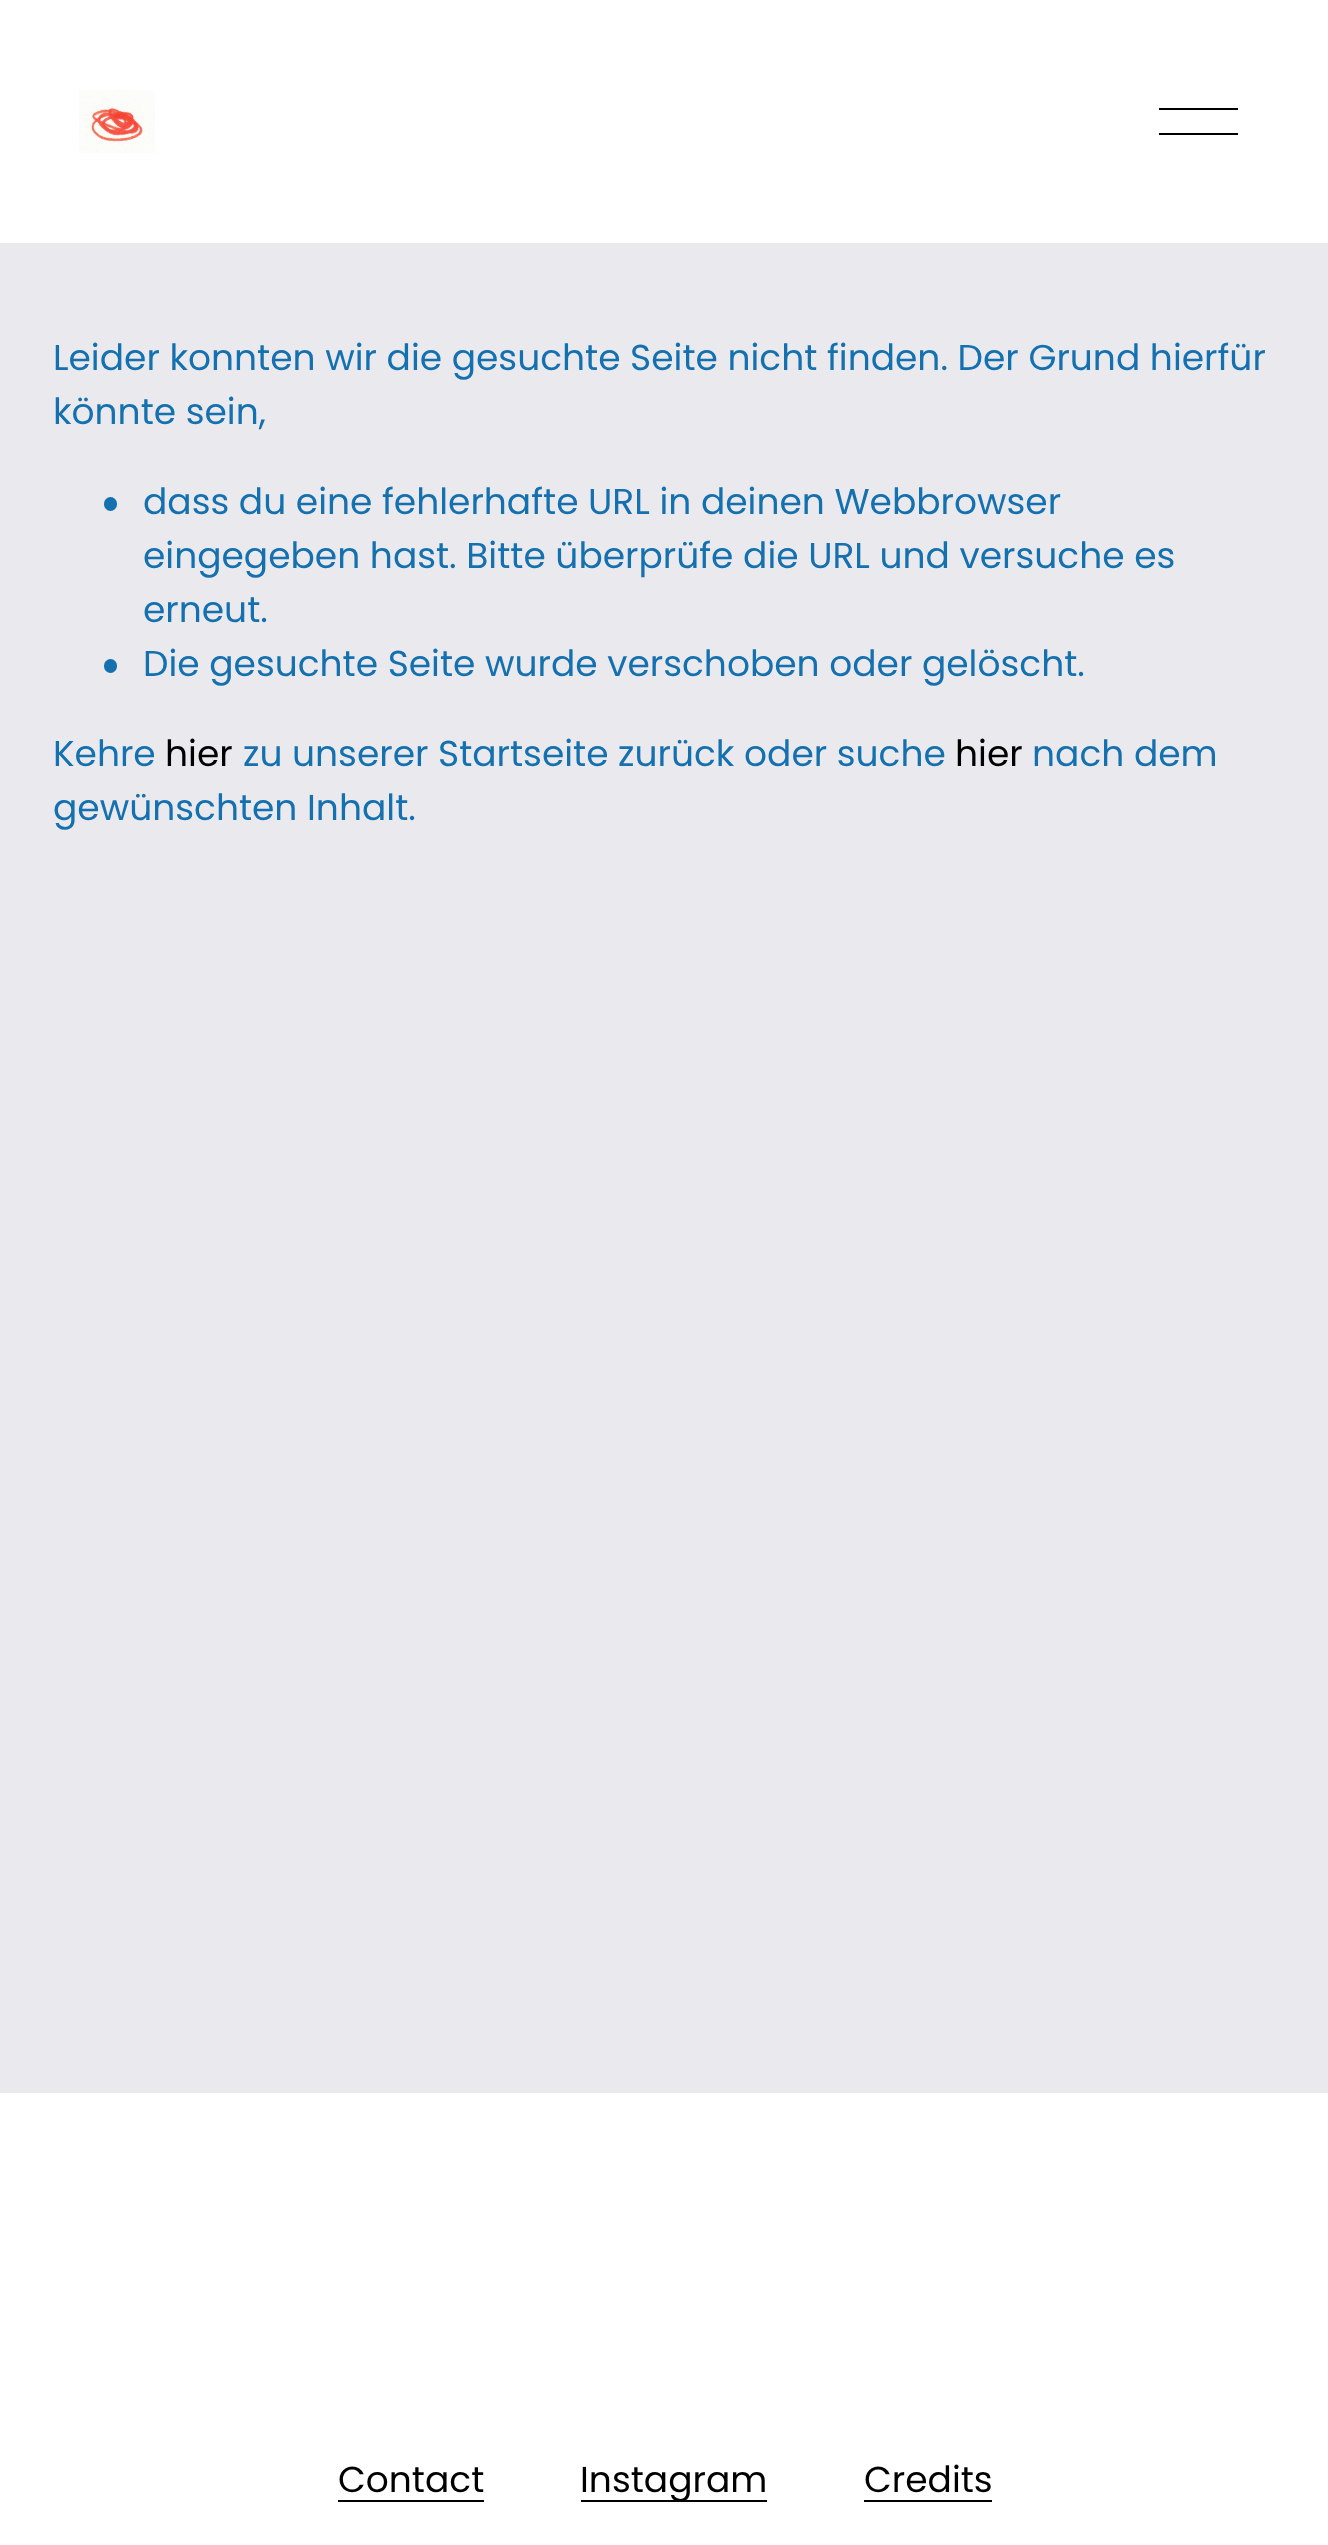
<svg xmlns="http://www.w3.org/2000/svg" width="1328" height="2545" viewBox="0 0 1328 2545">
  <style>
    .t1 { font: 36px Poppins; fill: #1470af; }
    .t2 { font: 36px Poppins; fill: #000; }
  </style>
  <rect width="100%" height="100%" fill="#eaeaee"/>
  <rect x="0" y="0" width="1328" height="243" fill="#fff"/>
  <image x="79" y="90" width="76" height="63" href="images/1.png"/>
  <rect x="1159" y="108" width="79" height="2" fill="#000"/>
  <rect x="1159" y="133" width="79" height="2" fill="#000"/>
  <text x="53" y="370" class="t1">Leider konnten wir die gesuchte Seite nicht finden. Der Grund hierfür</text>
  <text x="53" y="424" class="t1">könnte sein,</text>
  <rect x="104" y="497" width="13" height="14" rx="6.5" fill="#1470af"/>
  <text x="143" y="514" class="t1">dass du eine fehlerhafte URL in deinen Webbrowser</text>
  <text x="143" y="568" class="t1">eingegeben hast. Bitte überprüfe die URL und versuche es</text>
  <text x="143" y="622" class="t1">erneut.</text>
  <rect x="104" y="659" width="13" height="14" rx="6.5" fill="#1470af"/>
  <text x="143" y="676" class="t1">Die gesuchte Seite wurde verschoben oder gelöscht.</text>
  <text x="53" y="766" class="t1">Kehre</text>
  <text x="165" y="766" class="t2">hier</text>
  <text x="243" y="766" class="t1">zu unserer Startseite zurück oder suche</text>
  <text x="955" y="766" class="t2">hier</text>
  <text x="1032" y="766" class="t1">nach dem</text>
  <text x="53" y="820" class="t1">gewünschten Inhalt.</text>
  <rect x="0" y="2093" width="1328" height="452" fill="#fff"/>
  <text x="338" y="2492" class="t2">Contact</text>
  <rect x="338" y="2500" width="146" height="2" fill="#000"/>
  <rect x="581" y="2500" width="186" height="2" fill="#000"/>
  <text x="580" y="2492" class="t2">Instagram</text>
  <text x="864" y="2492" class="t2">Credits</text>
  <rect x="864" y="2500" width="128" height="2" fill="#000"/>
</svg>
